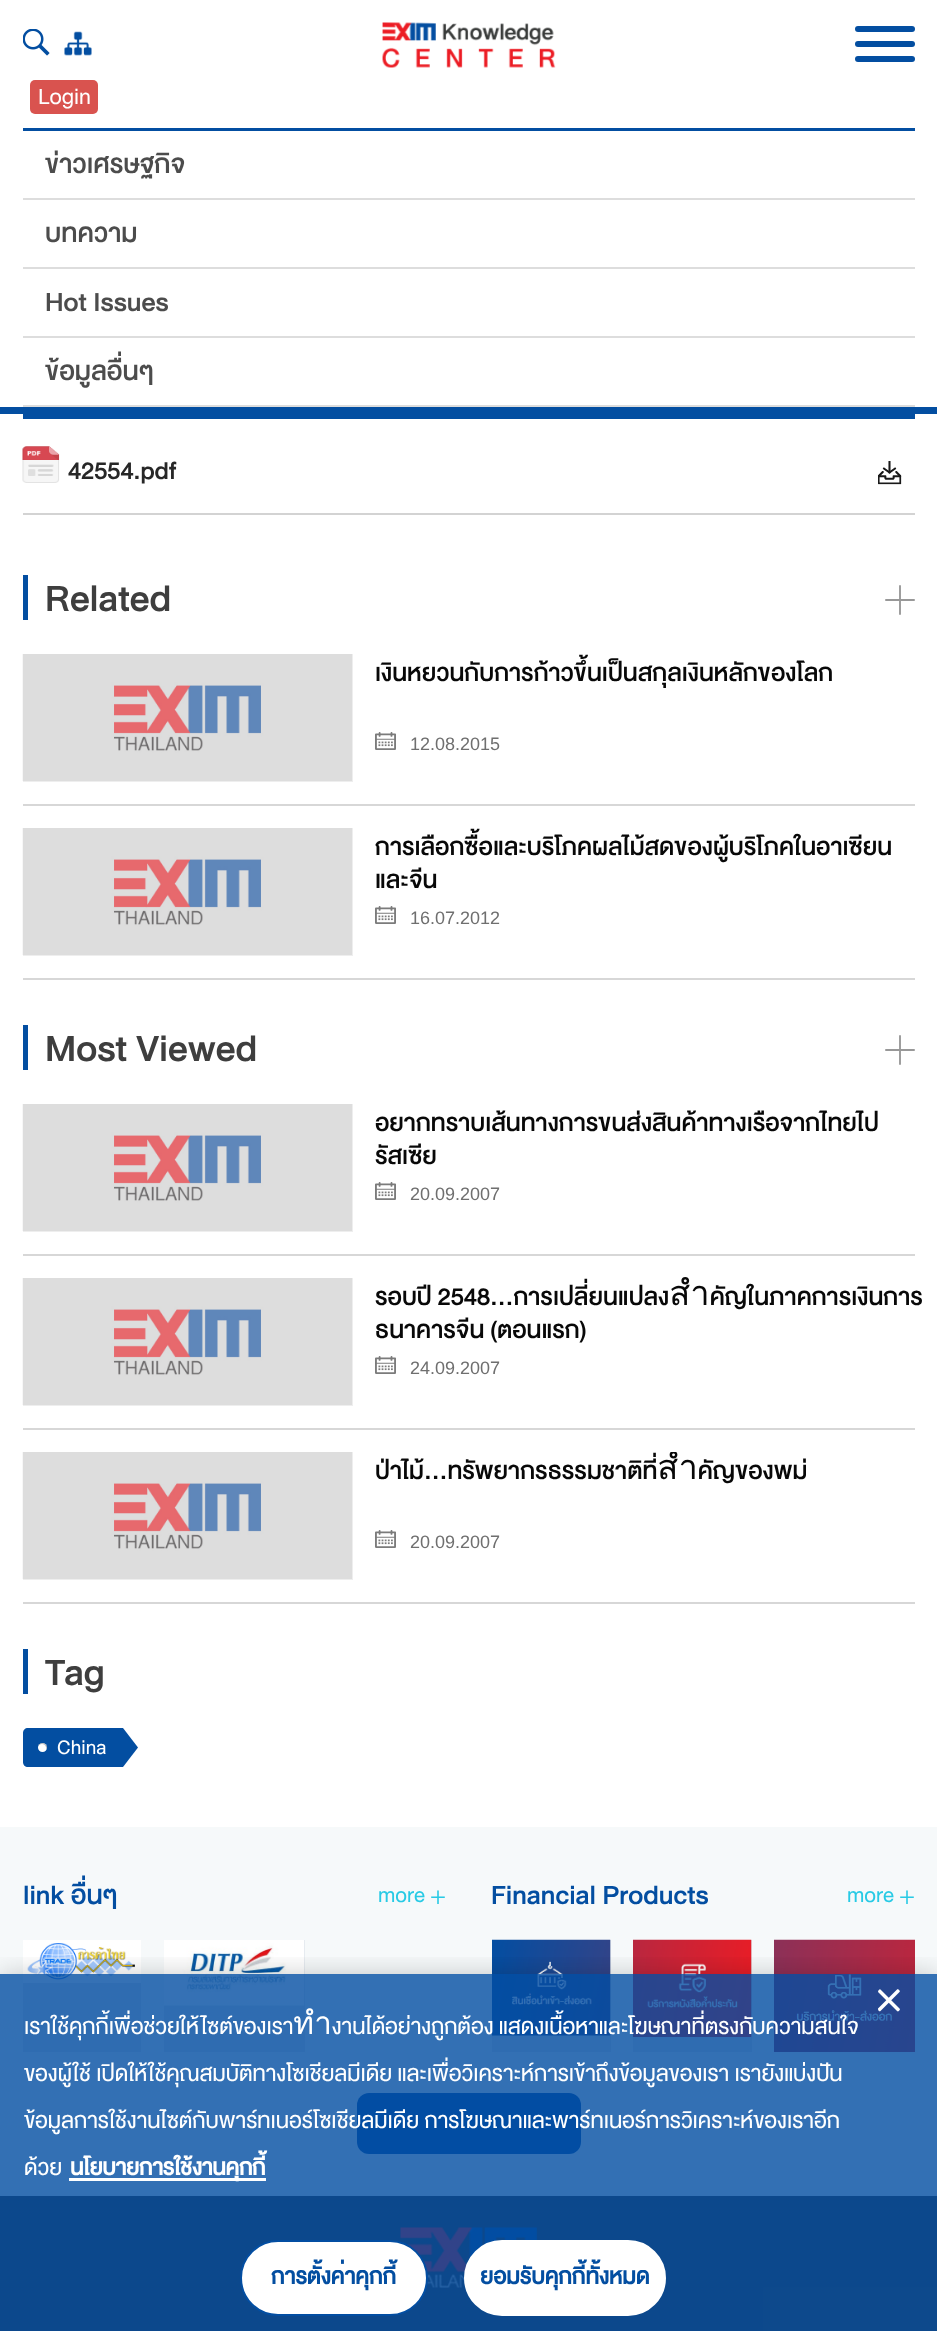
<svg xmlns="http://www.w3.org/2000/svg" width="937" height="2331" viewBox="0 0 937 2331">
  <style>
    .t1 { font: 31.5px 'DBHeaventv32'; fill: #fff; }
    .t2 { font: 500 37.5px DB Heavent; fill: #4c4c4c; }
    .t3 { font: 500 34.5px DB Heavent; fill: #272727; }
    .t4 { font: 500 52.5px DB Heavent; fill: #3e3e3e; }
    .t5 { font: 500 34.5px DB Heavent; fill: #080808; }
    .t6 { font: 18px Liberation Sans; fill: #6f6f6f; }
    .t7 { font: 28px 'DBHeaventv32'; fill: #fff; }
    .t8 { font: 500 37.5px DB Heavent; fill: #034ea1; }
    .t9 { font: 30px 'DBHeaventv32'; fill: #28cae5; }
    .t10 { font: 300 39px DB Heavent; fill: #28cae5; }
    .t11 { font: bold 31.5px 'DBHeaventv32'; fill: #fff; }
    .t12 { font: bold 31.5px 'DBHeaventv32'; letter-spacing: 0.3px; fill: #034ea1; }
  </style>
  <defs>
    <clipPath id="clip1"><rect x="375" y="654" width="458" height="68"/></clipPath>
    <clipPath id="clip2"><rect x="375" y="1104" width="540" height="68"/></clipPath>
    <clipPath id="clip3"><rect x="375" y="1452" width="431" height="68"/></clipPath>
    <clipPath id="clip4"><rect x="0" y="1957" width="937" height="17"/></clipPath>
    <clipPath id="clip5"><rect x="24" y="2004" width="843" height="221"/></clipPath>
  </defs>
  <rect width="100%" height="100%" fill="#fff"/>
  <rect x="0" y="407" width="937" height="7" fill="#034ea1"/>
  <image x="64" y="31" width="28" height="25" href="images/1.png"/>
  <image x="382" y="22" width="174" height="46" href="images/2.png"/>
  <rect x="855" y="41" width="60" height="6" rx="3" fill="#034ea1"/>
  <rect x="855" y="26" width="60" height="6" rx="3" fill="#034ea1"/>
  <rect x="855" y="56" width="60" height="6" rx="3" fill="#034ea1"/>
  <image x="23" y="29" width="27" height="27" href="images/3.png"/>
  <rect x="30" y="80" width="68" height="34" rx="5" fill="#d9534f"/>
  <text x="38" y="104" class="t1">Login</text>
  <rect x="23" y="128" width="892" height="3" fill="#034ea1"/>
  <rect x="23" y="198" width="892" height="2" fill="#ddd"/>
  <text x="45" y="173" class="t2">ข่าวเศรษฐกิจ</text>
  <rect x="23" y="267" width="892" height="2" fill="#ddd"/>
  <text x="45" y="242" class="t2">บทความ</text>
  <rect x="23" y="336" width="892" height="2" fill="#ddd"/>
  <text x="45" y="311" class="t2">Hot Issues</text>
  <rect x="23" y="405" width="892" height="2" fill="#ddd"/>
  <text x="45" y="380" class="t2">ข้อมูลอื่นๆ</text>
  <rect x="23" y="414" width="892" height="5" fill="#034ea1"/>
  <rect x="23" y="513" width="892" height="2" fill="#d3d3d3"/>
  <image x="22" y="446" width="38" height="37" href="images/4.png"/>
  <text x="68" y="479" class="t3">42554.pdf</text>
  <image x="878" y="461" width="24" height="24" href="images/5.png"/>
  <rect x="23" y="575" width="5" height="45" fill="#034ea1"/>
  <text x="45" y="611" class="t4">Related</text>
  <image x="885" y="585" width="30" height="30" href="images/6.png"/>
  <rect x="23" y="804" width="892" height="2" fill="#d7d7d7"/>
  <rect x="23" y="654" width="330" height="128" fill="#eee"/>
  <image x="22" y="654" width="330" height="127" href="images/7.png"/>
  <g clip-path="url(#clip1)">
    <text x="375" y="681" class="t5">เงินหยวนกับการก้าวขึ้นเป็นสกุลเงินหลักของโลก</text>
  </g>
  <image x="375" y="732" width="21" height="18" href="images/8.png"/>
  <text x="410" y="750" class="t6">12.08.2015</text>
  <rect x="23" y="978" width="892" height="2" fill="#d7d7d7"/>
  <rect x="23" y="828" width="330" height="128" fill="#eee"/>
  <image x="22" y="828" width="330" height="127" href="images/7.png"/>
  <text x="375" y="855" class="t5">การเลือกซื้อและบริโภคผลไม้สดของผู้บริโภคในอาเซียน</text>
  <text x="375" y="888" class="t5">และจีน</text>
  <image x="375" y="906" width="21" height="18" href="images/8.png"/>
  <text x="410" y="924" class="t6">16.07.2012</text>
  <rect x="23" y="1025" width="5" height="45" fill="#034ea1"/>
  <text x="45" y="1061" class="t4">Most Viewed</text>
  <image x="885" y="1035" width="30" height="30" href="images/6.png"/>
  <rect x="23" y="1254" width="892" height="2" fill="#d7d7d7"/>
  <rect x="23" y="1104" width="330" height="128" fill="#eee"/>
  <image x="22" y="1104" width="330" height="127" href="images/7.png"/>
  <text x="375" y="1131" class="t5">อยากทราบเส้นทางการขนส่งสินค้าทางเรือจากไทยไป</text>
  <g clip-path="url(#clip2)">
    <text x="375" y="1164" class="t5">รัสเซีย</text>
  </g>
  <image x="375" y="1182" width="21" height="18" href="images/8.png"/>
  <text x="410" y="1200" class="t6">20.09.2007</text>
  <rect x="23" y="1428" width="892" height="2" fill="#d7d7d7"/>
  <rect x="23" y="1278" width="330" height="128" fill="#eee"/>
  <image x="22" y="1278" width="330" height="127" href="images/7.png"/>
  <text x="375" y="1305" class="t5">รอบปี 2548...การเปลี่ยนแปลงสำคัญในภาคการเงินการ</text>
  <text x="375" y="1338" class="t5">ธนาคารจีน (ตอนแรก)</text>
  <image x="375" y="1356" width="21" height="18" href="images/8.png"/>
  <text x="410" y="1374" class="t6">24.09.2007</text>
  <rect x="23" y="1602" width="892" height="2" fill="#d7d7d7"/>
  <rect x="23" y="1452" width="330" height="128" fill="#eee"/>
  <image x="22" y="1452" width="330" height="127" href="images/7.png"/>
  <g clip-path="url(#clip3)">
    <text x="375" y="1479" class="t5">ป่าไม้…ทรัพยากรธรรมชาติที่สำคัญของพม่า</text>
  </g>
  <image x="375" y="1530" width="21" height="18" href="images/8.png"/>
  <text x="410" y="1548" class="t6">20.09.2007</text>
  <rect x="23" y="1649" width="5" height="45" fill="#034ea1"/>
  <text x="45" y="1685" class="t4">Tag</text>
  <path d="M28 1728H138V1767H28C25 1767 23 1765 23 1762V1733C23 1730 25 1728 28 1728Z" fill="#034ea1"/>
  <circle cx="42.5" cy="1747.5" r="4.5" fill="#fff"/>
  <path d="M42 1744C45 1744 46.5 1747 46.5 1749.5C49.5 1744 40 1740 38 1746C39 1745 40 1744 42 1744Z" fill="#00000040"/>
  <text x="57" y="1754" class="t7">China</text>
  <rect x="123" y="1728" width="15" height="39" fill="#fff"/>
  <path d="M123 1767V1728L138 1747.5Z" fill="#034ea1"/>
  <rect x="0" y="1827" width="937" height="369" fill="#f6f9fa"/>
  <text x="23" y="1904" class="t8">link อื่นๆ</text>
  <text x="378" y="1902" class="t9">more</text>
  <text x="430" y="1904" class="t10">+</text>
  <rect x="23" y="1983" width="118" height="69" fill="#dee4eb"/>
  <image x="23" y="1940" width="118" height="43" href="images/9.png"/>
  <rect x="164" y="1940" width="141" height="112" fill="#dee4eb"/>
  <image x="164" y="1940" width="141" height="66" href="images/10.png"/>
  <text x="491" y="1904" class="t8">Financial Products</text>
  <text x="847" y="1902" class="t9">more</text>
  <text x="899" y="1904" class="t10">+</text>
  <rect x="492" y="1940" width="119" height="112" fill="#dee4eb"/>
  <image x="492" y="1939" width="119" height="97" href="images/11.png"/>
  <rect x="633" y="1940" width="119" height="112" fill="#dee4eb"/>
  <image x="633" y="1939" width="119" height="98" href="images/12.png"/>
  <image x="774" y="1939" width="141" height="113" href="images/13.png"/>
  <rect x="357" y="2093" width="224" height="61" rx="12" fill="#004ea6"/>
  <rect x="0" y="2196" width="937" height="135" fill="#333"/>
  <image x="400" y="2227" width="137" height="61" href="images/15.png"/>
  <g clip-path="url(#clip4)">
    <rect x="0" y="1974" width="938" height="357" fill="#00000033" filter="blur(13.5px)"/>
  </g>
  <rect x="0" y="1974" width="937" height="357" fill="#034ea2cc"/>
  <image x="878" y="1989" width="22" height="23" href="images/14.png"/>
  <text x="24" y="2034" class="t1">เราใช้คุกกี้เพื่อช่วยให้ไซต์ของเราทำงานได้อย่างถูกต้อง แสดงเนื้อหาและโฆษณาที่ตรงกับความสนใจ</text>
  <text x="24" y="2081" class="t1">ของผู้ใช้ เปิดให้ใช้คุณสมบัติทางโซเชียลมีเดีย และเพื่อวิเคราะห์การเข้าถึงข้อมูลของเรา เรายังแบ่งปัน</text>
  <g clip-path="url(#clip5)">
    <text x="24" y="2128" class="t1">ข้อมูลการใช้งานไซต์กับพาร์ทเนอร์โซเชียลมีเดีย การโฆษณาและพาร์ทเนอร์การวิเคราะห์ของเราอีก</text>
    <text x="24" y="2175" class="t1">ด้วย</text>
  </g>
  <rect x="69" y="2178" width="197" height="3" fill="#fff"/>
  <text x="70" y="2175" class="t11">นโยบายการใช้งานคุกกี้</text>
  <rect x="241" y="2241" width="186" height="74" rx="37" fill="#fff" stroke="#034ea2" stroke-width="2"/>
  <text x="271" y="2284" class="t12">การตั้งค่าคุกกี้</text>
  <rect x="465" y="2241" width="200" height="74" rx="37" fill="#fff" stroke="#fff" stroke-width="2"/>
  <text x="480" y="2284" class="t12">ยอมรับคุกกี้ทั้งหมด</text>
</svg>
